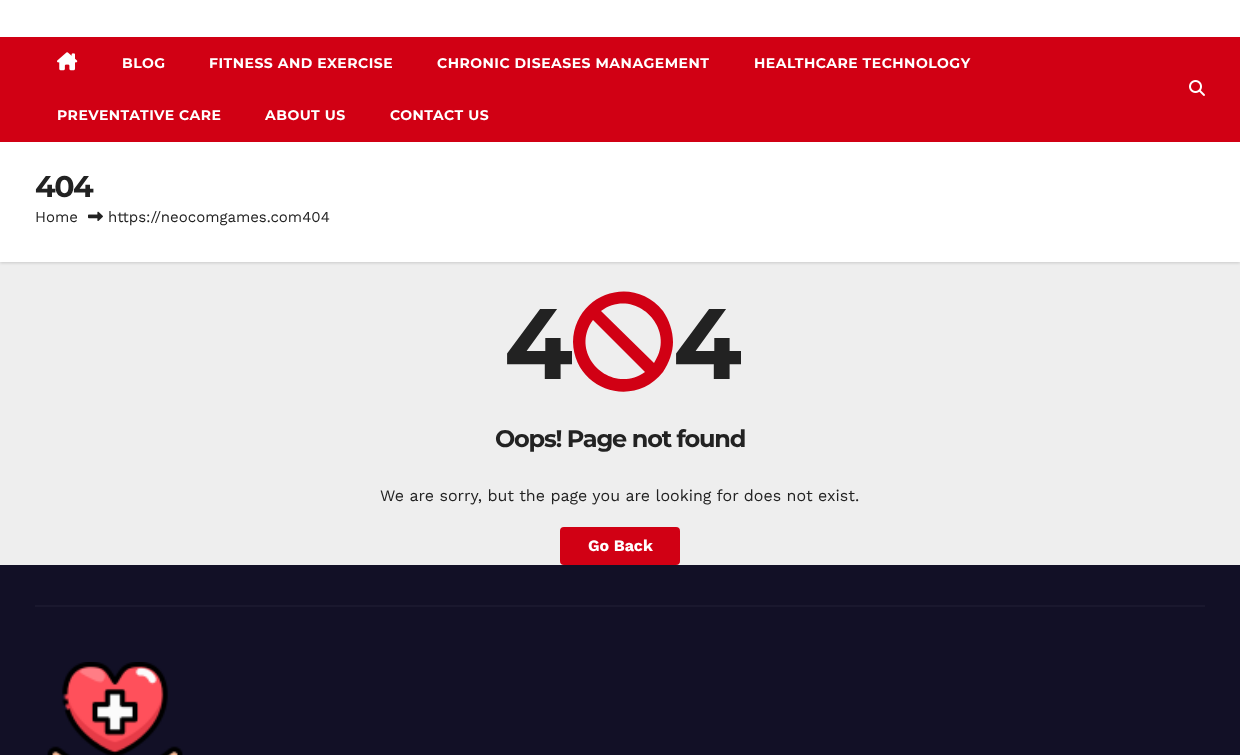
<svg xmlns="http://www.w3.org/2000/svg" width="1240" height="755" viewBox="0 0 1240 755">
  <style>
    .t1 { font: bold 14px Montserrat; letter-spacing: 0.5px; fill: #fff; }
    .t2 { font: bold 30px Montserrat; letter-spacing: -1.5px; fill: #222; }
    .t3 { font: 15px Work Sans; fill: #222; }
    .t4 { font: bold 100px Montserrat; letter-spacing: -5px; fill: #222; }
    .t5 { font: bold 24px Montserrat; letter-spacing: -1.2px; fill: #222; }
    .t6 { font: 16px Work Sans; fill: #222; }
    .t7 { font: bold 16px Work Sans; fill: #fff; }
  </style>
  <rect width="100%" height="100%" fill="#eee"/>
  <rect x="0" y="0" width="1240" height="37" fill="#fff"/>
  <rect x="0" y="143" width="1240" height="120" fill="#00000026" filter="blur(1.5px)"/>
  <rect x="0" y="37" width="1240" height="105" fill="#d10014"/>
  <image x="57" y="52" width="21" height="19" href="images/1.png"/>
  <text x="122" y="68" class="t1">BLOG</text>
  <text x="209" y="68" class="t1">FITNESS AND EXERCISE</text>
  <text x="437" y="68" class="t1">CHRONIC DISEASES MANAGEMENT</text>
  <text x="754" y="68" class="t1">HEALTHCARE TECHNOLOGY</text>
  <text x="57" y="120" class="t1">PREVENTATIVE CARE</text>
  <text x="265" y="120" class="t1">ABOUT US</text>
  <text x="390" y="120" class="t1">CONTACT US</text>
  <image x="1189" y="80" width="16" height="16" href="images/2.png"/>
  <rect x="0" y="142" width="1240" height="120" fill="#fff"/>
  <text x="35" y="197" class="t2">404</text>
  <text x="35" y="222" class="t3">Home</text>
  <image x="88" y="211" width="15" height="10" href="images/3.png"/>
  <text x="108" y="222" class="t3">https://neocomgames.com404</text>
  <text x="504" y="379" class="t4">4</text>
  <path d="M645 372L593 320C568 354 611 396 645 372ZM654 363C678 329 635 286 601 311ZM573 342C574 294 633 273 663 311C669 320 673 331 673 342C673 352 669 363 663 372C633 410 574 389 573 342Z" fill="#d10014"/>
  <text x="673" y="379" class="t4">4</text>
  <text x="495" y="447" class="t5">Oops! Page not found</text>
  <text x="380" y="501" class="t6">We are sorry, but the page you are looking for does not exist.</text>
  <rect x="561" y="528" width="118" height="36" rx="3" fill="#d10014" stroke="#d10014" stroke-width="2"/>
  <text x="588" y="551" class="t7">Go Back</text>
  <rect x="0" y="565" width="1240" height="190" fill="#121026"/>
  <rect x="35" y="605" width="1170" height="2" fill="#1a182e"/>
  <image x="47" y="662" width="136" height="93" href="images/4.png"/>
</svg>
